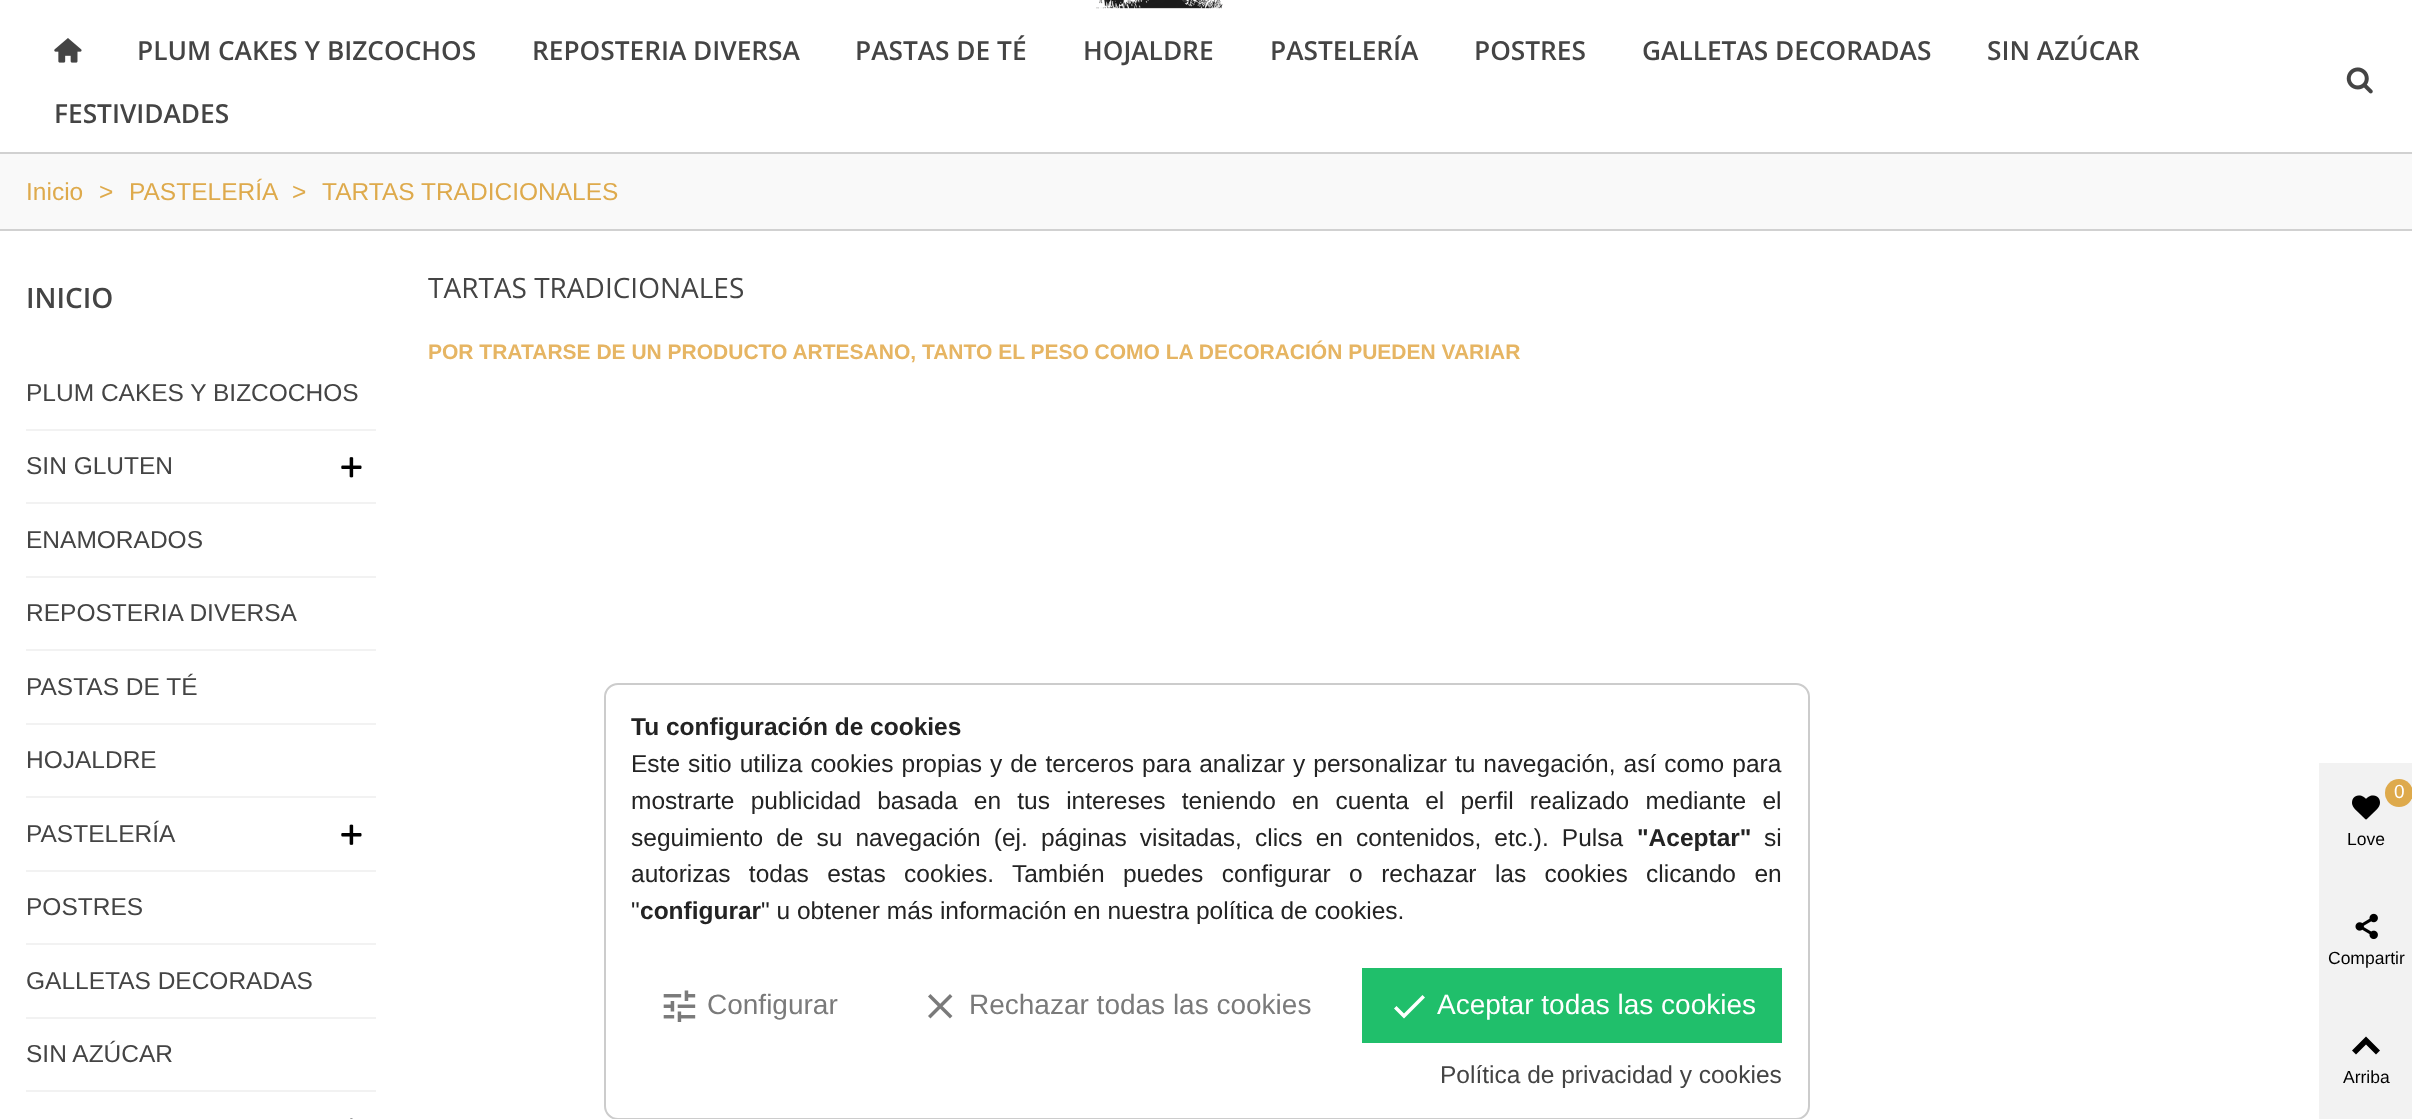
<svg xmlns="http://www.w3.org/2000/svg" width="2412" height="1119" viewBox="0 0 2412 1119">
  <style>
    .t1 { font: 600 26.25px Open Sans; fill: #444; }
    .t2 { font: 24.5px Liberation Sans; fill: #deaa4c; }
    .t3 { font: 600 28px Open Sans; fill: #444; }
    .t4 { font: 24.5px Liberation Sans; fill: #444; }
    .t5 { font: 28px Open Sans; fill: #444; }
    .t6 { font: bold 21px Liberation Sans; fill: #e6b563; }
    .t7 { font: 19px Liberation Sans; fill: #fff; }
    .t8 { font: 17.5px Liberation Sans; fill: #000; }
    .t9 { font: bold 24.5px Liberation Sans; fill: #232323; }
    .t10 { font: 24.5px Liberation Sans; fill: #232323; }
    .t11 { font: 28px Liberation Sans; fill: #7a7a7a; }
    .t12 { font: 28px Liberation Sans; fill: #fff; }
  </style>
  <rect width="100%" height="100%" fill="#fff"/>
  <image x="1096" y="0" width="127" height="9" href="images/1.png"/>
  <image x="54" y="38" width="28" height="25" href="images/2.png"/>
  <text x="137" y="60" class="t1">PLUM CAKES Y BIZCOCHOS</text>
  <text x="532" y="60" class="t1">REPOSTERIA DIVERSA</text>
  <text x="855" y="60" class="t1">PASTAS DE TÉ</text>
  <text x="1083" y="60" class="t1">HOJALDRE</text>
  <text x="1270" y="60" class="t1">PASTELERÍA</text>
  <text x="1474" y="60" class="t1">POSTRES</text>
  <text x="1642" y="60" class="t1">GALLETAS DECORADAS</text>
  <text x="1987" y="60" class="t1">SIN AZÚCAR</text>
  <text x="54" y="123" class="t1">FESTIVIDADES</text>
  <image x="2346" y="67" width="27" height="27" href="images/3.png"/>
  <rect x="0" y="154" width="2412" height="75" fill="#f9f9f9"/>
  <rect x="0" y="152" width="2412" height="2" fill="#d1d1d1"/>
  <rect x="0" y="229" width="2412" height="2" fill="#d1d1d1"/>
  <text x="26" y="200" class="t2">Inicio</text>
  <text x="99" y="200" class="t2">&gt;</text>
  <text x="129" y="200" class="t2">PASTELERÍA</text>
  <text x="292" y="200" class="t2">&gt;</text>
  <text x="322" y="200" class="t2">TARTAS TRADICIONALES</text>
  <text x="26" y="308" class="t3">INICIO</text>
  <rect x="26" y="429" width="350" height="2" fill="#f2f2f2"/>
  <text x="26" y="401" class="t4">PLUM CAKES Y BIZCOCHOS</text>
  <rect x="26" y="502" width="350" height="2" fill="#f2f2f2"/>
  <text x="26" y="474" class="t4">SIN GLUTEN</text>
  <image x="341" y="457" width="21" height="21" href="images/4.png"/>
  <rect x="26" y="576" width="350" height="2" fill="#f2f2f2"/>
  <text x="26" y="548" class="t4">ENAMORADOS</text>
  <rect x="26" y="649" width="350" height="2" fill="#f2f2f2"/>
  <text x="26" y="621" class="t4">REPOSTERIA DIVERSA</text>
  <rect x="26" y="723" width="350" height="2" fill="#f2f2f2"/>
  <text x="26" y="695" class="t4">PASTAS DE TÉ</text>
  <rect x="26" y="796" width="350" height="2" fill="#f2f2f2"/>
  <text x="26" y="768" class="t4">HOJALDRE</text>
  <rect x="26" y="870" width="350" height="2" fill="#f2f2f2"/>
  <text x="26" y="842" class="t4">PASTELERÍA</text>
  <image x="341" y="824" width="21" height="21" href="images/5.png"/>
  <rect x="26" y="943" width="350" height="2" fill="#f2f2f2"/>
  <text x="26" y="915" class="t4">POSTRES</text>
  <rect x="26" y="1017" width="350" height="2" fill="#f2f2f2"/>
  <text x="26" y="989" class="t4">GALLETAS DECORADAS</text>
  <rect x="26" y="1090" width="350" height="2" fill="#f2f2f2"/>
  <text x="26" y="1062" class="t4">SIN AZÚCAR</text>
  <image x="350" y="1118" width="3" height="1" href="images/6.png"/>
  <text x="428" y="298" class="t5">TARTAS TRADICIONALES</text>
  <text x="428" y="359" class="t6">POR TRATARSE DE UN PRODUCTO ARTESANO, TANTO EL PESO COMO LA DECORACIÓN PUEDEN VARIAR</text>
  <rect x="2319" y="763" width="93" height="356" fill="#f2f2f2"/>
  <circle cx="2399" cy="793" r="14" fill="#deaa4c"/>
  <text x="2394" y="798" class="t7">0</text>
  <image x="2352" y="795" width="28" height="25" href="images/7.png"/>
  <text x="2347" y="845" class="t8">Love</text>
  <image x="2355" y="913" width="23" height="27" href="images/8.png"/>
  <text x="2328" y="964" class="t8">Compartir</text>
  <path d="M2352 1050.5L2366 1036.5L2380 1050.5L2376 1054.5L2366 1044.5L2356 1054.5Z" fill="#000"/>
  <text x="2343" y="1083" class="t8">Arriba</text>
  <rect x="605" y="684" width="1204" height="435" rx="13" fill="none" stroke="#ccc" stroke-width="2"/>
  <text x="631" y="735" class="t9">Tu configuración de cookies</text>
  <text x="631" y="772" word-spacing="1.25" class="t10">Este sitio utiliza cookies propias y de terceros para analizar y personalizar tu navegación, así como para</text>
  <text x="631" y="809" word-spacing="9.4" class="t10">mostrarte publicidad basada en tus intereses teniendo en cuenta el perfil realizado mediante el</text>
  <text x="631" y="846" word-spacing="6.25" class="t10">seguimiento de su navegación (ej. páginas visitadas, clics en contenidos, etc.). Pulsa</text>
  <text x="1637" y="846" class="t9">"Aceptar"</text>
  <text x="1764" y="846" class="t10">si</text>
  <text x="631" y="882" word-spacing="11.6" class="t10">autorizas todas estas cookies. También puedes configurar o rechazar las cookies clicando en</text>
  <text x="631" y="919" class="t10">"</text>
  <text x="640" y="919" class="t9">configurar</text>
  <text x="761" y="919" class="t10">" u obtener más información en nuestra política de cookies.</text>
  <image x="663" y="990" width="33" height="32" href="images/9.png"/>
  <text x="707" y="1014" class="t11">Configurar</text>
  <image x="928" y="994" width="25" height="25" href="images/10.png"/>
  <text x="969" y="1014" class="t11">Rechazar todas las cookies</text>
  <rect x="1362" y="968" width="420" height="75" fill="#20bf6b"/>
  <path d="M1404 1013.5L1422.5 995L1425 997.5L1404 1018.5L1394 1008.5L1396.5 1006Z" fill="#fff"/>
  <text x="1437" y="1014" class="t12">Aceptar todas las cookies</text>
  <text x="1440" y="1083" class="t4">Política de privacidad y cookies</text>
</svg>
